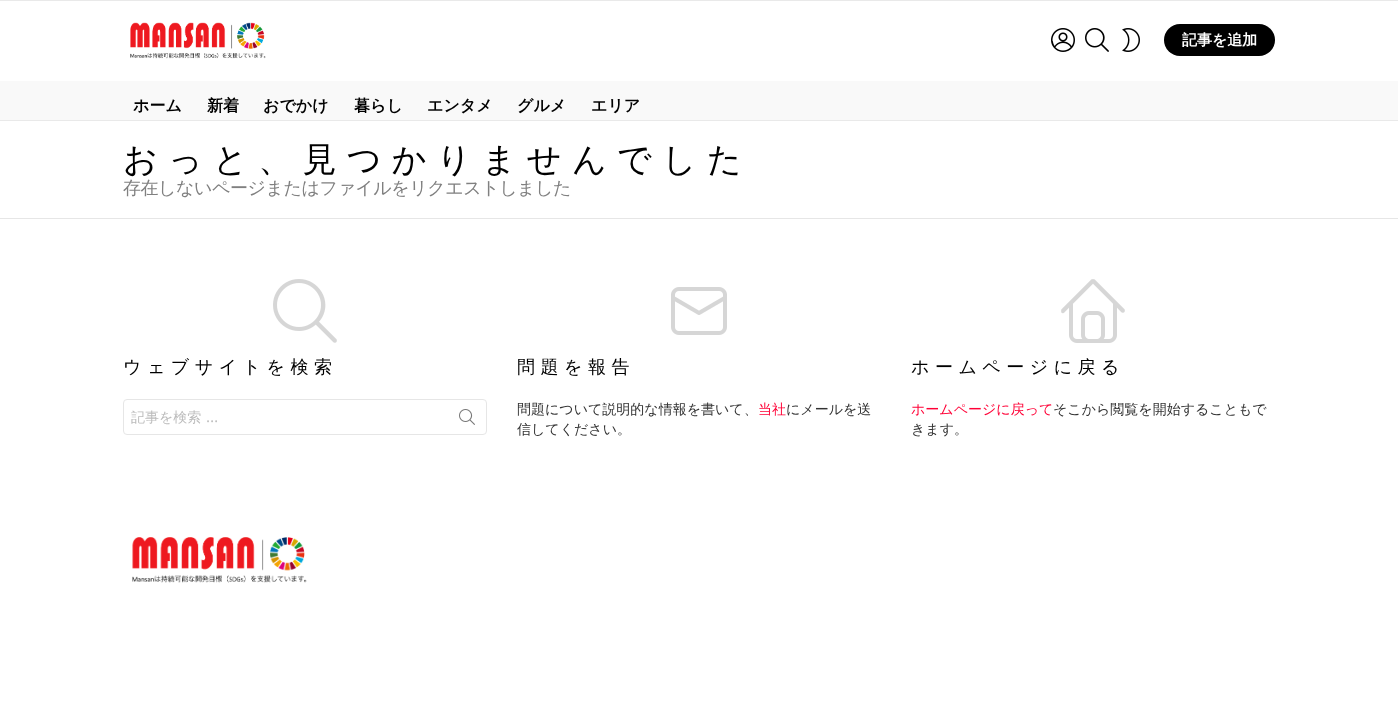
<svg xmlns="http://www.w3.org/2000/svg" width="1398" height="703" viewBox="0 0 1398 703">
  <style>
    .t1 { font: bold 15px WenQuanYi Zen Hei; fill: #fff; }
    .t2 { font: bold 16px WenQuanYi Zen Hei; fill: #000; }
    .t3 { font: 500 34px WenQuanYi Zen Hei; letter-spacing: 10.25px; fill: #000; }
    .t4 { font: 500 18px WenQuanYi Zen Hei; letter-spacing: -0.45px; fill: #808080; }
    .t5 { font: 500 18px WenQuanYi Zen Hei; letter-spacing: 5.5px; fill: #000; }
    .t6 { font: 500 14px WenQuanYi Zen Hei; fill: #bcbcbc; }
    .t7 { font: 14px Work Sans; fill: #bcbcbc; }
    .t8 { font: 500 14px WenQuanYi Zen Hei; fill: #333; }
    .t9 { font: 500 14px WenQuanYi Zen Hei; fill: #ff0036; }
  </style>
  <rect width="100%" height="100%" fill="#fff"/>
  <rect x="0" y="0" width="1398" height="1" fill="#e9e9e9"/>
  <image x="130" y="22" width="136" height="37" href="images/1.png"/>
  <image x="1051" y="28" width="24" height="24" href="images/2.png"/>
  <image x="1085" y="28" width="24" height="24" href="images/3.png"/>
  <image x="1122" y="28" width="18" height="24" href="images/4.png"/>
  <rect x="1164" y="24" width="111" height="32" rx="16" fill="#000"/>
  <text x="1182" y="45" class="t1">記事を追加</text>
  <rect x="0" y="81" width="1398" height="39" fill="#f9f9f9"/>
  <rect x="0" y="120" width="1398" height="1" fill="#e9e9e9"/>
  <text x="133" y="111" class="t2">ホーム</text>
  <text x="207" y="111" class="t2">新着</text>
  <text x="263" y="111" class="t2">おでかけ</text>
  <text x="354" y="111" class="t2">暮らし</text>
  <text x="427" y="111" class="t2">エンタメ</text>
  <text x="517" y="111" class="t2">グルメ</text>
  <text x="591" y="111" class="t2">エリア</text>
  <text x="123" y="171" class="t3">おっと、見つかりませんでした</text>
  <text x="123" y="194" class="t4">存在しないページまたはファイルをリクエストしました</text>
  <rect x="0" y="218" width="1398" height="1" fill="#e6e6e6"/>
  <image x="273" y="279" width="64" height="64" href="images/5.png"/>
  <text x="123" y="373" class="t5">ウェブサイトを検索</text>
  <rect x="123.5" y="399.5" width="363" height="35" rx="3.5" fill="none" stroke="#e6e6e6"/>
  <text x="131" y="422" class="t6">記事を検索</text>
  <text x="206" y="422" class="t7">…</text>
  <image x="459" y="409" width="16" height="16" href="images/6.png"/>
  <image x="671" y="287" width="56" height="48" href="images/7.png"/>
  <text x="517" y="373" class="t5">問題を報告</text>
  <text x="517" y="414" class="t8">問題について説明的な情報を書いて、</text>
  <text x="758" y="414" class="t9">当社</text>
  <text x="786" y="414" class="t8">にメールを送</text>
  <text x="517" y="434" class="t8">信してください。</text>
  <image x="1061" y="279" width="64" height="64" href="images/8.png"/>
  <text x="911" y="373" class="t5">ホームページに戻る</text>
  <text x="911" y="414" class="t9">ホームページに戻って</text>
  <text x="1053" y="414" class="t8">そこから閲覧を開始することもで</text>
  <text x="911" y="434" class="t8">きます。</text>
  <image x="132" y="537" width="175" height="46" href="images/9.png"/>
</svg>
